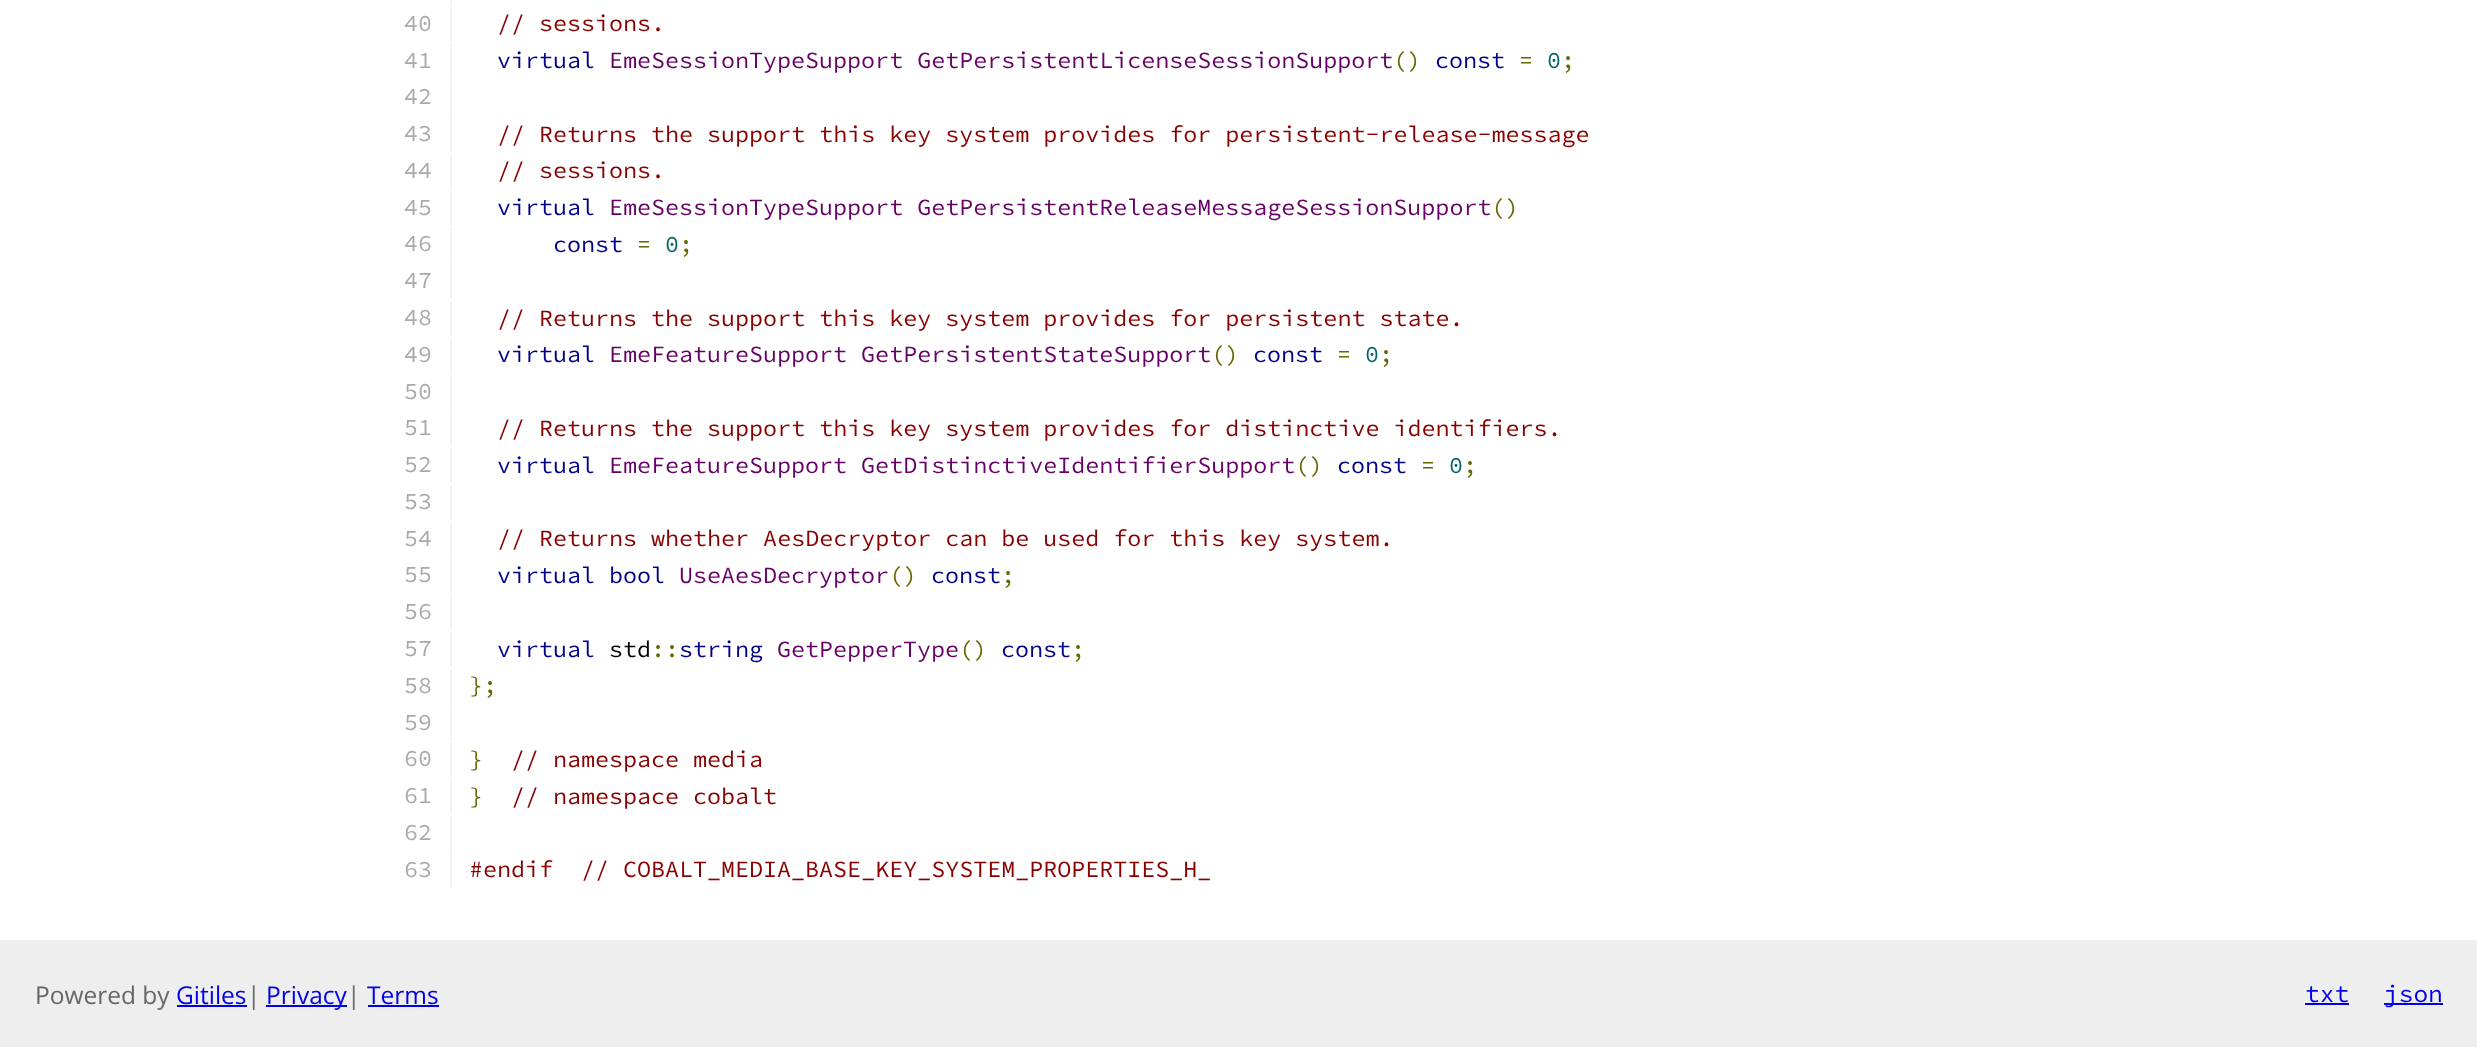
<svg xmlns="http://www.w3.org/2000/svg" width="2477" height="1047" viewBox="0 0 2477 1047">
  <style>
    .t1 { font: 200 23.35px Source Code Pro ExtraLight; fill: #aaa; }
    .t2 { font: 200 23.35px Source Code Pro ExtraLight; fill: #800; }
    .t3 { font: 200 23.35px Source Code Pro ExtraLight; fill: #008; }
    .t4 { font: 200 23.35px Source Code Pro ExtraLight; fill: #606; }
    .t5 { font: 200 23.35px Source Code Pro ExtraLight; fill: #660; }
    .t6 { font: 200 23.35px Source Code Pro ExtraLight; fill: #066; }
    .t7 { font: 200 23.35px Source Code Pro ExtraLight; fill: #000; }
    .t8 { font: 24.5px Open Sans; fill: #666; }
    .t9 { font: 24.5px Open Sans; fill: #00e; }
    .t10 { font: 200 24.5px Source Code Pro ExtraLight; fill: #00e; }
  </style>
  <rect width="100%" height="100%" fill="#fff"/>
  <rect x="450" y="0" width="2" height="5" fill="#f1f2f3"/>
  <rect x="450" y="7" width="2" height="35" fill="#f1f2f3"/>
  <text x="404" y="31" class="t1">40</text>
  <text x="497" y="31" class="t2">// sessions.</text>
  <rect x="450" y="44" width="2" height="35" fill="#f1f2f3"/>
  <text x="404" y="68" class="t1">41</text>
  <text x="497" y="68" class="t3">virtual</text>
  <text x="609" y="68" class="t4">EmeSessionTypeSupport GetPersistentLicenseSessionSupport</text>
  <text x="1393" y="68" class="t5">()</text>
  <text x="1435" y="68" class="t3">const</text>
  <text x="1519" y="68" class="t5">=</text>
  <text x="1547" y="68" class="t6">0</text>
  <text x="1561" y="68" class="t5">;</text>
  <rect x="450" y="81" width="2" height="35" fill="#f1f2f3"/>
  <text x="404" y="104" class="t1">42</text>
  <rect x="450" y="117" width="2" height="35" fill="#f1f2f3"/>
  <text x="404" y="141" class="t1">43</text>
  <text x="497" y="142" class="t2">// Returns the support this key system provides for persistent-release-message</text>
  <rect x="450" y="154" width="2" height="35" fill="#f1f2f3"/>
  <text x="404" y="178" class="t1">44</text>
  <text x="497" y="178" class="t2">// sessions.</text>
  <rect x="450" y="191" width="2" height="35" fill="#f1f2f3"/>
  <text x="404" y="215" class="t1">45</text>
  <text x="497" y="215" class="t3">virtual</text>
  <text x="609" y="215" class="t4">EmeSessionTypeSupport GetPersistentReleaseMessageSessionSupport</text>
  <text x="1491" y="215" class="t5">()</text>
  <rect x="450" y="228" width="2" height="35" fill="#f1f2f3"/>
  <text x="404" y="251" class="t1">46</text>
  <text x="553" y="252" class="t3">const</text>
  <text x="637" y="252" class="t5">=</text>
  <text x="665" y="252" class="t6">0</text>
  <text x="679" y="252" class="t5">;</text>
  <rect x="450" y="264" width="2" height="35" fill="#f1f2f3"/>
  <text x="404" y="288" class="t1">47</text>
  <rect x="450" y="301" width="2" height="35" fill="#f1f2f3"/>
  <text x="404" y="325" class="t1">48</text>
  <text x="497" y="326" class="t2">// Returns the support this key system provides for persistent state.</text>
  <rect x="450" y="338" width="2" height="35" fill="#f1f2f3"/>
  <text x="404" y="362" class="t1">49</text>
  <text x="497" y="362" class="t3">virtual</text>
  <text x="609" y="362" class="t4">EmeFeatureSupport GetPersistentStateSupport</text>
  <text x="1211" y="362" class="t5">()</text>
  <text x="1253" y="362" class="t3">const</text>
  <text x="1337" y="362" class="t5">=</text>
  <text x="1365" y="362" class="t6">0</text>
  <text x="1379" y="362" class="t5">;</text>
  <rect x="450" y="375" width="2" height="35" fill="#f1f2f3"/>
  <text x="404" y="399" class="t1">50</text>
  <rect x="450" y="411" width="2" height="35" fill="#f1f2f3"/>
  <text x="404" y="435" class="t1">51</text>
  <text x="497" y="436" class="t2">// Returns the support this key system provides for distinctive identifiers.</text>
  <rect x="450" y="448" width="2" height="35" fill="#f1f2f3"/>
  <text x="404" y="472" class="t1">52</text>
  <text x="497" y="473" class="t3">virtual</text>
  <text x="609" y="473" class="t4">EmeFeatureSupport GetDistinctiveIdentifierSupport</text>
  <text x="1295" y="473" class="t5">()</text>
  <text x="1337" y="473" class="t3">const</text>
  <text x="1421" y="473" class="t5">=</text>
  <text x="1449" y="473" class="t6">0</text>
  <text x="1463" y="473" class="t5">;</text>
  <rect x="450" y="485" width="2" height="35" fill="#f1f2f3"/>
  <text x="404" y="509" class="t1">53</text>
  <rect x="450" y="522" width="2" height="35" fill="#f1f2f3"/>
  <text x="404" y="546" class="t1">54</text>
  <text x="497" y="546" class="t2">// Returns whether AesDecryptor can be used for this key system.</text>
  <rect x="450" y="558" width="2" height="35" fill="#f1f2f3"/>
  <text x="404" y="582" class="t1">55</text>
  <text x="497" y="583" class="t3">virtual bool</text>
  <text x="679" y="583" class="t4">UseAesDecryptor</text>
  <text x="889" y="583" class="t5">()</text>
  <text x="931" y="583" class="t3">const</text>
  <text x="1001" y="583" class="t5">;</text>
  <rect x="450" y="595" width="2" height="35" fill="#f1f2f3"/>
  <text x="404" y="619" class="t1">56</text>
  <rect x="450" y="632" width="2" height="35" fill="#f1f2f3"/>
  <text x="404" y="656" class="t1">57</text>
  <text x="497" y="657" class="t3">virtual</text>
  <text x="609" y="657" class="t7">std</text>
  <text x="651" y="657" class="t5">::</text>
  <text x="679" y="657" class="t3">string</text>
  <text x="777" y="657" class="t4">GetPepperType</text>
  <text x="959" y="657" class="t5">()</text>
  <text x="1001" y="657" class="t3">const</text>
  <text x="1071" y="657" class="t5">;</text>
  <rect x="450" y="669" width="2" height="35" fill="#f1f2f3"/>
  <text x="404" y="693" class="t1">58</text>
  <text x="469" y="693" class="t5">};</text>
  <rect x="450" y="705" width="2" height="35" fill="#f1f2f3"/>
  <text x="404" y="730" class="t1">59</text>
  <rect x="450" y="742" width="2" height="35" fill="#f1f2f3"/>
  <text x="404" y="766" class="t1">60</text>
  <text x="469" y="767" class="t5">}</text>
  <text x="511" y="767" class="t2">// namespace media</text>
  <rect x="450" y="779" width="2" height="35" fill="#f1f2f3"/>
  <text x="404" y="803" class="t1">61</text>
  <text x="469" y="804" class="t5">}</text>
  <text x="511" y="804" class="t2">// namespace cobalt</text>
  <rect x="450" y="816" width="2" height="35" fill="#f1f2f3"/>
  <text x="404" y="840" class="t1">62</text>
  <rect x="450" y="852" width="2" height="35" fill="#f1f2f3"/>
  <text x="404" y="877" class="t1">63</text>
  <text x="469" y="877" class="t2">#endif</text>
  <text x="581" y="877" class="t2">// COBALT_MEDIA_BASE_KEY_SYSTEM_PROPERTIES_H_</text>
  <rect x="0" y="940" width="2477" height="107" fill="#eee"/>
  <text x="35" y="1004" class="t8">Powered by</text>
  <text x="176" y="1004" class="t9">Gitiles</text>
  <rect x="177" y="1005" width="70" height="2" fill="#00e"/>
  <text x="247" y="1004" class="t8">|</text>
  <rect x="266" y="1005" width="81" height="2" fill="#00e"/>
  <text x="266" y="1004" class="t9">Privacy</text>
  <text x="347" y="1004" class="t8">|</text>
  <text x="367" y="1004" class="t9">Terms</text>
  <rect x="368" y="1005" width="71" height="2" fill="#00e"/>
  <text x="2305" y="1002" class="t10">txt</text>
  <rect x="2305" y="1003" width="44" height="2" fill="#00e"/>
  <rect x="2384" y="1003" width="59" height="2" fill="#00e"/>
  <text x="2384" y="1002" class="t10">json</text>
</svg>
